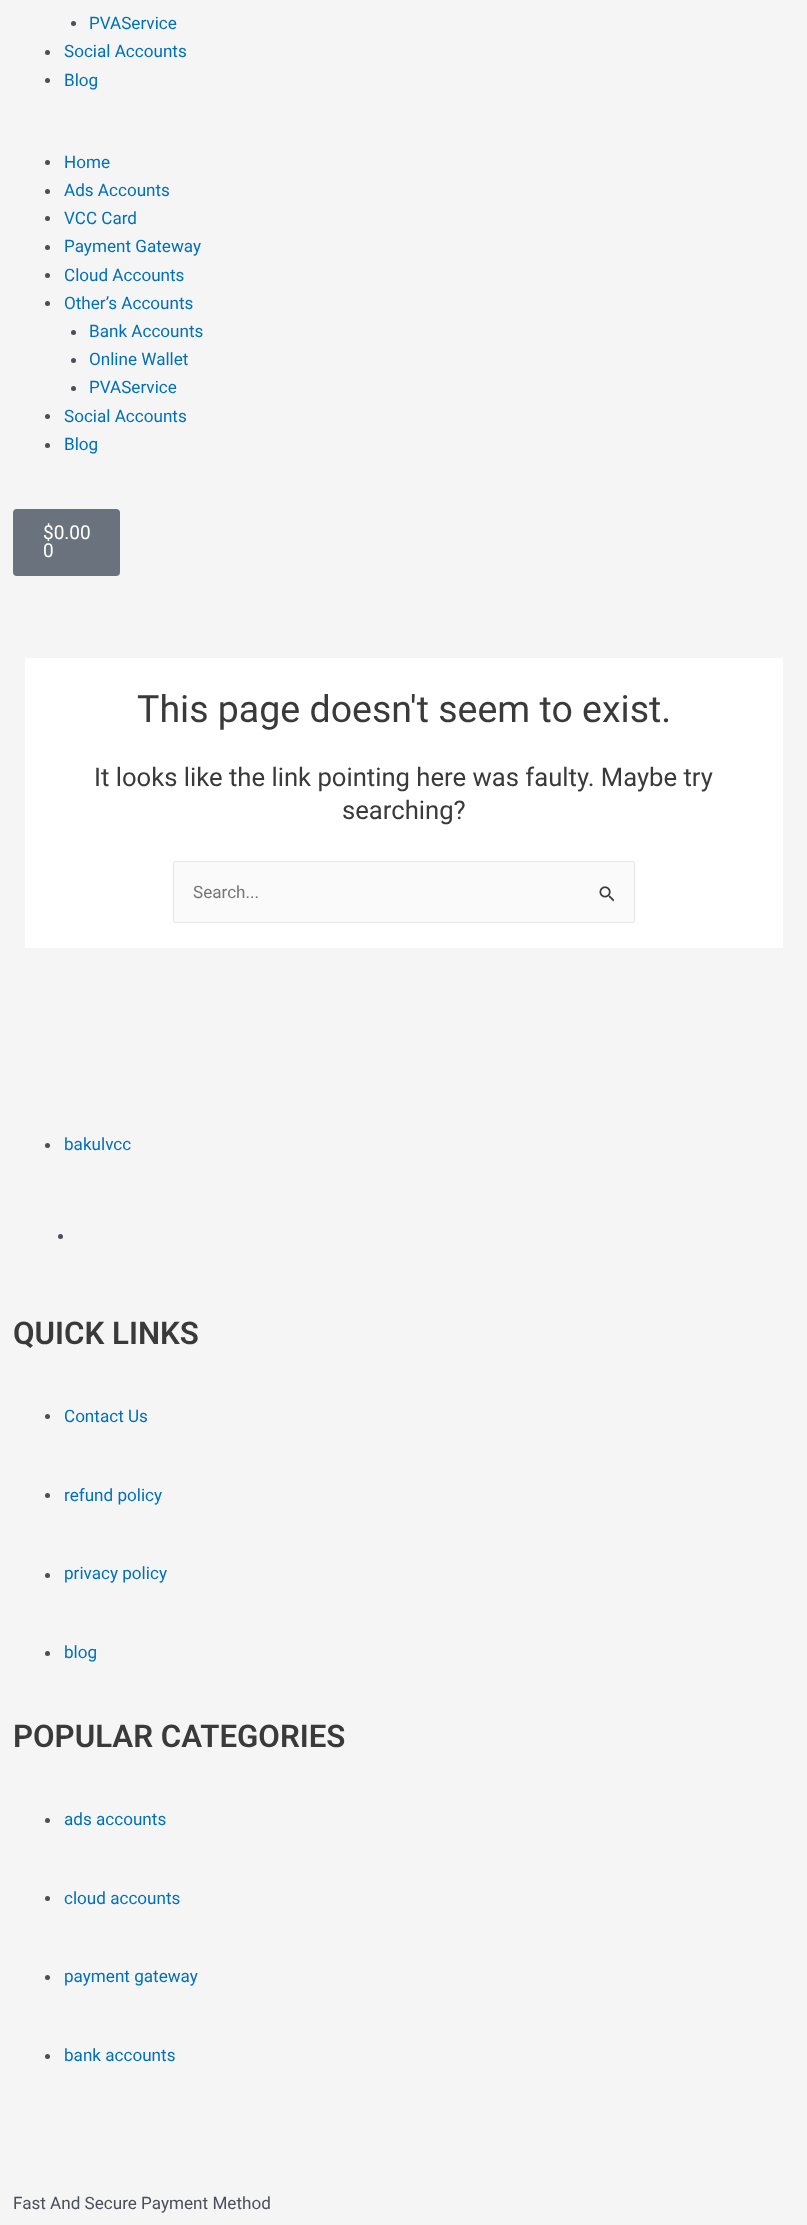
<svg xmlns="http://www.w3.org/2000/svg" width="807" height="2225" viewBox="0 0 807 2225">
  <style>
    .t1 { font: 17.1px Roboto; fill: #0170b9; }
    .t2 { font: 19px Roboto; fill: #fff; }
    .t3 { font: 37.5px Roboto; fill: #3a3a3a; }
    .t4 { font: 25.65px Roboto; fill: #3a3a3a; }
    .t5 { font: 17.1px Roboto; fill: #757575; }
    .t6 { font: 600 31.25px Roboto; fill: #3a3a3a; }
    .t7 { font: 17.1px Roboto; fill: #4b4f58; }
  </style>
  <rect width="100%" height="100%" fill="#f5f5f5"/>
  <circle cx="73.5" cy="23.5" r="2.5" fill="#4b4f58"/>
  <text x="89" y="29" class="t1">PVAService</text>
  <circle cx="47.5" cy="52.5" r="2.5" fill="#4b4f58"/>
  <text x="64" y="57" class="t1">Social Accounts</text>
  <circle cx="47.5" cy="80.5" r="2.5" fill="#4b4f58"/>
  <text x="64" y="86" class="t1">Blog</text>
  <circle cx="47.5" cy="162.5" r="2.5" fill="#4b4f58"/>
  <text x="64" y="168" class="t1">Home</text>
  <circle cx="47.5" cy="191.5" r="2.5" fill="#4b4f58"/>
  <text x="64" y="196" class="t1">Ads Accounts</text>
  <circle cx="47.5" cy="218.5" r="2.5" fill="#4b4f58"/>
  <text x="64" y="224" class="t1">VCC Card</text>
  <circle cx="47.5" cy="247.5" r="2.5" fill="#4b4f58"/>
  <text x="64" y="252" class="t1">Payment Gateway</text>
  <circle cx="47.5" cy="275.5" r="2.5" fill="#4b4f58"/>
  <text x="64" y="281" class="t1">Cloud Accounts</text>
  <circle cx="47.5" cy="303.5" r="2.5" fill="#4b4f58"/>
  <text x="64" y="309" class="t1">Other’s Accounts</text>
  <circle cx="73.5" cy="332.5" r="2.5" fill="#4b4f58"/>
  <text x="89" y="337" class="t1">Bank Accounts</text>
  <circle cx="73.5" cy="360.5" r="2.5" fill="#4b4f58"/>
  <text x="89" y="365" class="t1">Online Wallet</text>
  <circle cx="73.5" cy="388.5" r="2.5" fill="#4b4f58"/>
  <text x="89" y="393" class="t1">PVAService</text>
  <circle cx="47.5" cy="416.5" r="2.5" fill="#4b4f58"/>
  <text x="64" y="422" class="t1">Social Accounts</text>
  <circle cx="47.5" cy="445.5" r="2.5" fill="#4b4f58"/>
  <text x="64" y="450" class="t1">Blog</text>
  <rect x="13" y="509" width="107" height="67" rx="4" fill="#69727d"/>
  <text x="43" y="539" class="t2">$0.00</text>
  <text x="43" y="557" class="t2">0</text>
  <rect x="25" y="658" width="758" height="290" fill="#fff"/>
  <text x="137" y="722" class="t3">This page doesn't seem to exist.</text>
  <text x="94" y="786" class="t4">It looks like the link pointing here was faulty. Maybe try</text>
  <text x="342" y="819" class="t4">searching?</text>
  <rect x="173.5" y="861.5" width="461" height="61" rx="2" fill="#fafafa" stroke="#e5e5e5"/>
  <text x="193" y="898" class="t5">Search...</text>
  <image x="599" y="886" width="15" height="16" href="images/1.png"/>
  <circle cx="47.5" cy="1145.5" r="2.5" fill="#4b4f58"/>
  <text x="64" y="1150" class="t1">bakulvcc</text>
  <circle cx="60.5" cy="1236.5" r="2.5" fill="#4b4f58"/>
  <text x="13" y="1344" class="t6">QUICK LINKS</text>
  <circle cx="47.5" cy="1416.5" r="2.5" fill="#4b4f58"/>
  <text x="64" y="1422" class="t1">Contact Us</text>
  <circle cx="47.5" cy="1495.5" r="2.5" fill="#4b4f58"/>
  <text x="64" y="1501" class="t1">refund policy</text>
  <circle cx="47.5" cy="1575.5" r="2.5" fill="#4b4f58"/>
  <text x="64" y="1579" class="t1">privacy policy</text>
  <circle cx="47.5" cy="1653.5" r="2.5" fill="#4b4f58"/>
  <text x="64" y="1658" class="t1">blog</text>
  <text x="13" y="1747" class="t6">POPULAR CATEGORIES</text>
  <circle cx="47.5" cy="1820.5" r="2.5" fill="#4b4f58"/>
  <text x="64" y="1825" class="t1">ads accounts</text>
  <circle cx="47.5" cy="1898.5" r="2.5" fill="#4b4f58"/>
  <text x="64" y="1904" class="t1">cloud accounts</text>
  <circle cx="47.5" cy="1977.5" r="2.5" fill="#4b4f58"/>
  <text x="64" y="1982" class="t1">payment gateway</text>
  <circle cx="47.5" cy="2056.5" r="2.5" fill="#4b4f58"/>
  <text x="64" y="2061" class="t1">bank accounts</text>
  <text x="13" y="2209" class="t7">Fast And Secure Payment Method</text>
</svg>
